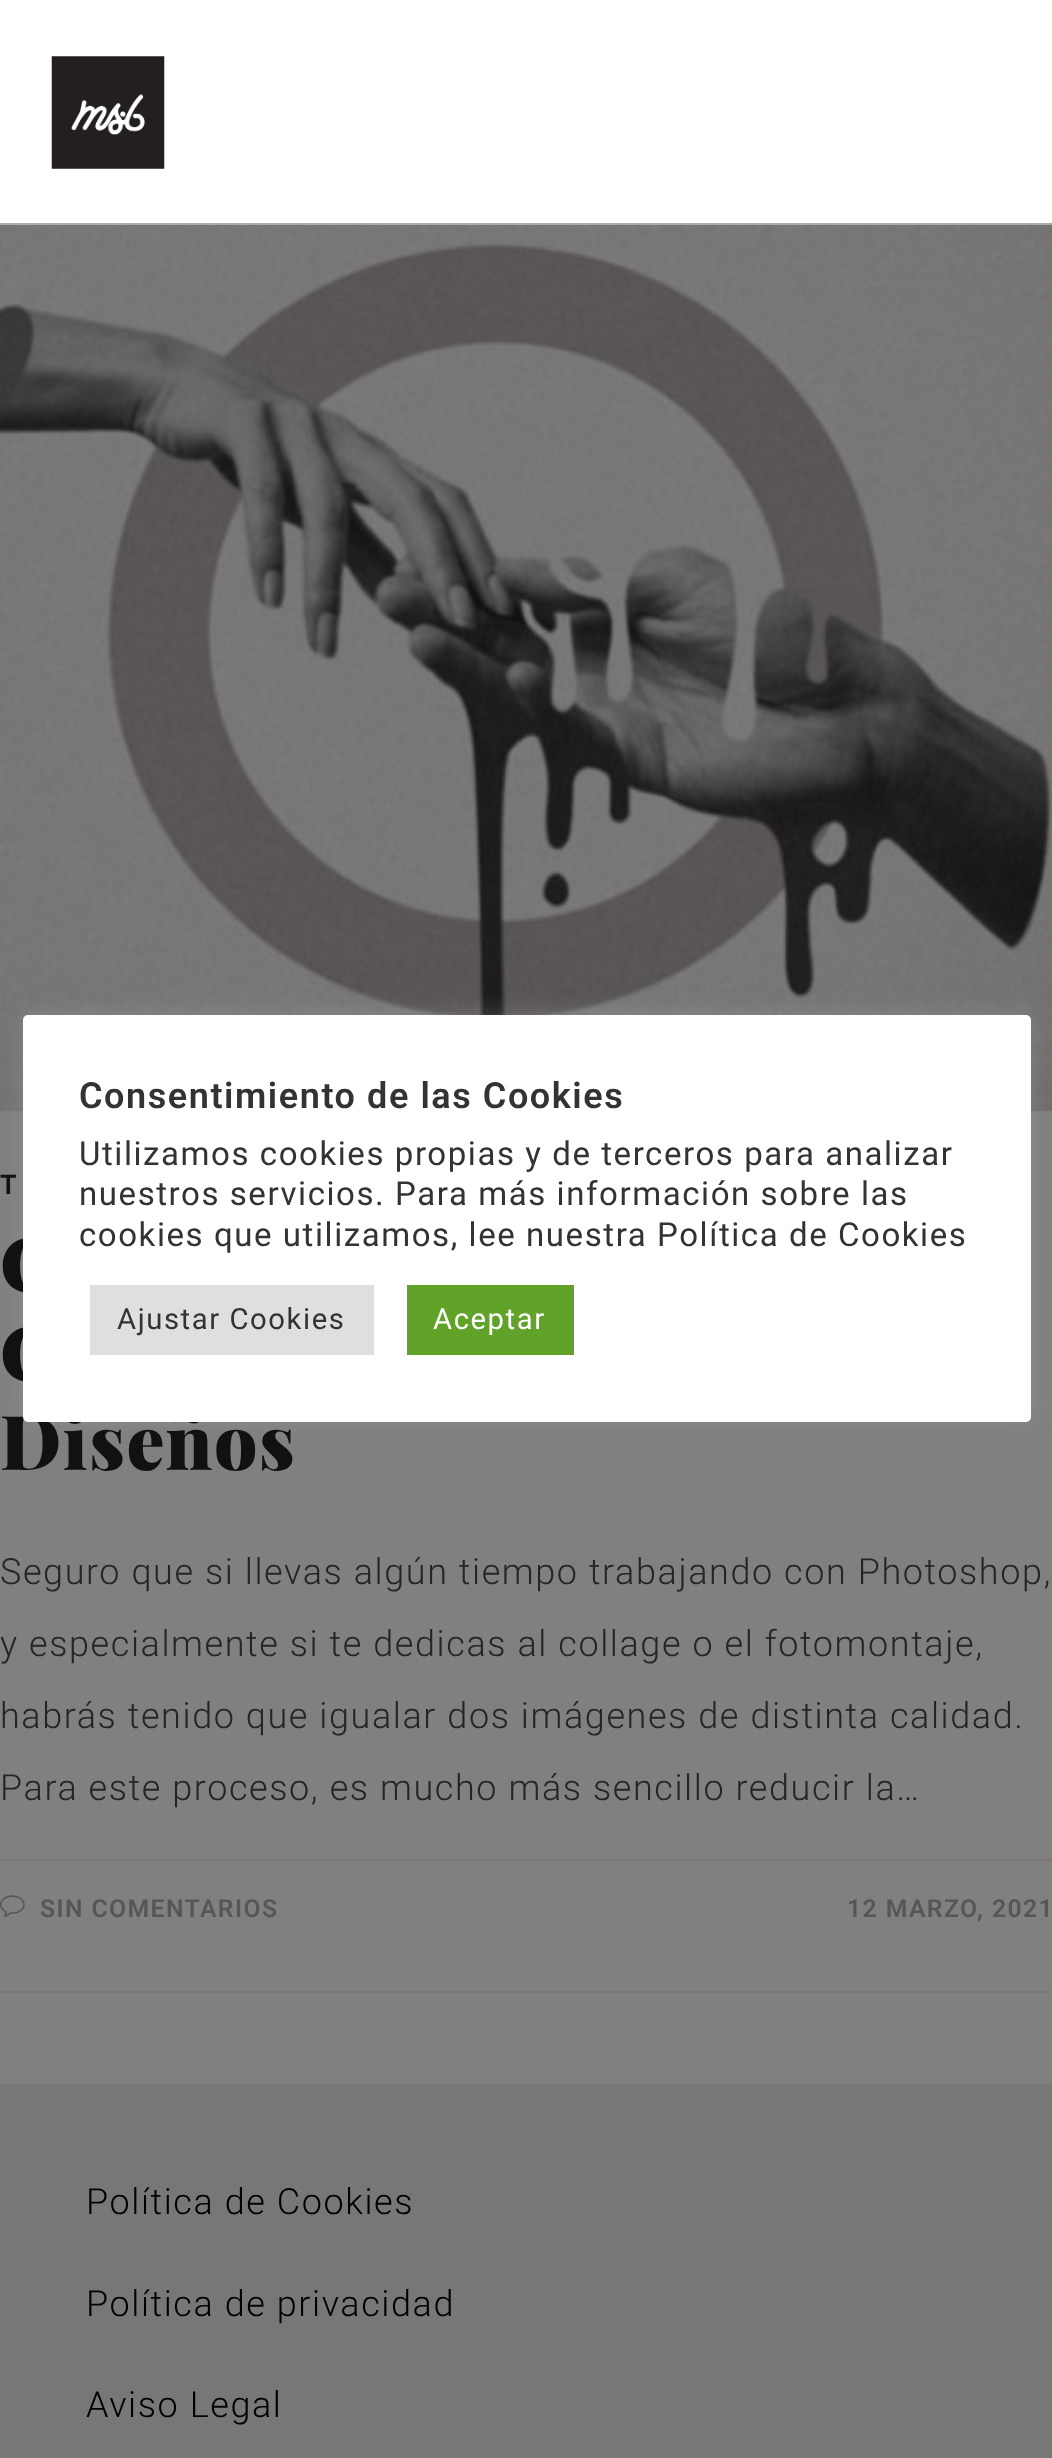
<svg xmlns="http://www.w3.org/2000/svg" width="1052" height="2458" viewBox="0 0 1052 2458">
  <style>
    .t1 { font: 900 75.5px Playfair Display; letter-spacing: 1.57px; fill: #121010; }
    .t2 { font: 600 36px Roboto; letter-spacing: 1.57px; fill: #333; }
    .t3 { font: 33px Roboto; letter-spacing: 1.57px; fill: #333; }
    .t4 { font: 29.25px Roboto; letter-spacing: 1.57px; fill: #333; }
    .t5 { font: 29.25px Roboto; letter-spacing: 1.57px; fill: #fff; }
    .t6 { font: 600 27px Roboto; letter-spacing: 1.4px; fill: #121010; }
    .t7 { font: 300 36px Roboto; letter-spacing: 1.57px; fill: #252525; }
    .t8 { font: 600 24.75px Roboto; letter-spacing: 1.4px; fill: #565656; }
    .t9 { font: 300 36px Roboto; letter-spacing: 1.57px; fill: #000; }
  </style>
  <rect width="100%" height="100%" fill="#808080"/>
  <image x="0" y="225" width="1052" height="887" href="images/2.png"/>
  <rect x="23" y="1013" width="1008" height="407" rx="5" fill="#acabab4d" filter="blur(11px)"/>
  <text x="0" y="1292" class="t1">C</text>
  <text x="0" y="1381" class="t1">C</text>
  <text x="0" y="1470" class="t1">Diseños</text>
  <rect x="23" y="1015" width="1008" height="407" rx="5" fill="#fff"/>
  <text x="79" y="1108" class="t2">Consentimiento de las Cookies</text>
  <text x="79" y="1165" class="t3">Utilizamos cookies propias y de terceros para analizar</text>
  <text x="79" y="1205" class="t3">nuestros servicios. Para más información sobre las</text>
  <text x="79" y="1246" class="t3">cookies que utilizamos, lee nuestra Política de Cookies</text>
  <rect x="90" y="1285" width="284" height="70" fill="#dedfe0"/>
  <text x="117" y="1329" class="t4">Ajustar Cookies</text>
  <rect x="407" y="1285" width="167" height="70" fill="#61a229"/>
  <text x="433" y="1329" class="t5">Aceptar</text>
  <rect x="0" y="0" width="1052" height="223" fill="#fff"/>
  <rect x="0" y="223" width="1052" height="2" fill="#ababab"/>
  <image x="51" y="56" width="114" height="113" href="images/1.png"/>
  <rect x="0" y="1991" width="1052" height="2" fill="#7a7879"/>
  <text x="0" y="1194" class="t6">T</text>
  <text x="0" y="1584" class="t7">Seguro que si llevas algún tiempo trabajando con Photoshop,</text>
  <text x="0" y="1656" class="t7">y especialmente si te dedicas al collage o el fotomontaje,</text>
  <text x="0" y="1728" class="t7">habrás tenido que igualar dos imágenes de distinta calidad.</text>
  <text x="0" y="1800" class="t7">Para este proceso, es mucho más sencillo reducir la…</text>
  <rect x="0" y="1859" width="1052" height="2" fill="#7a7879"/>
  <image x="0" y="1895" width="25" height="22" href="images/3.png"/>
  <text x="40" y="1917" class="t8">SIN COMENTARIOS</text>
  <text x="847" y="1917" class="t8">12 MARZO, 2021</text>
  <rect x="0" y="2084" width="1052" height="374" fill="#777"/>
  <text x="86" y="2214" class="t9">Política de Cookies</text>
  <text x="86" y="2316" class="t9">Política de privacidad</text>
  <text x="86" y="2417" class="t9">Aviso Legal</text>
</svg>
